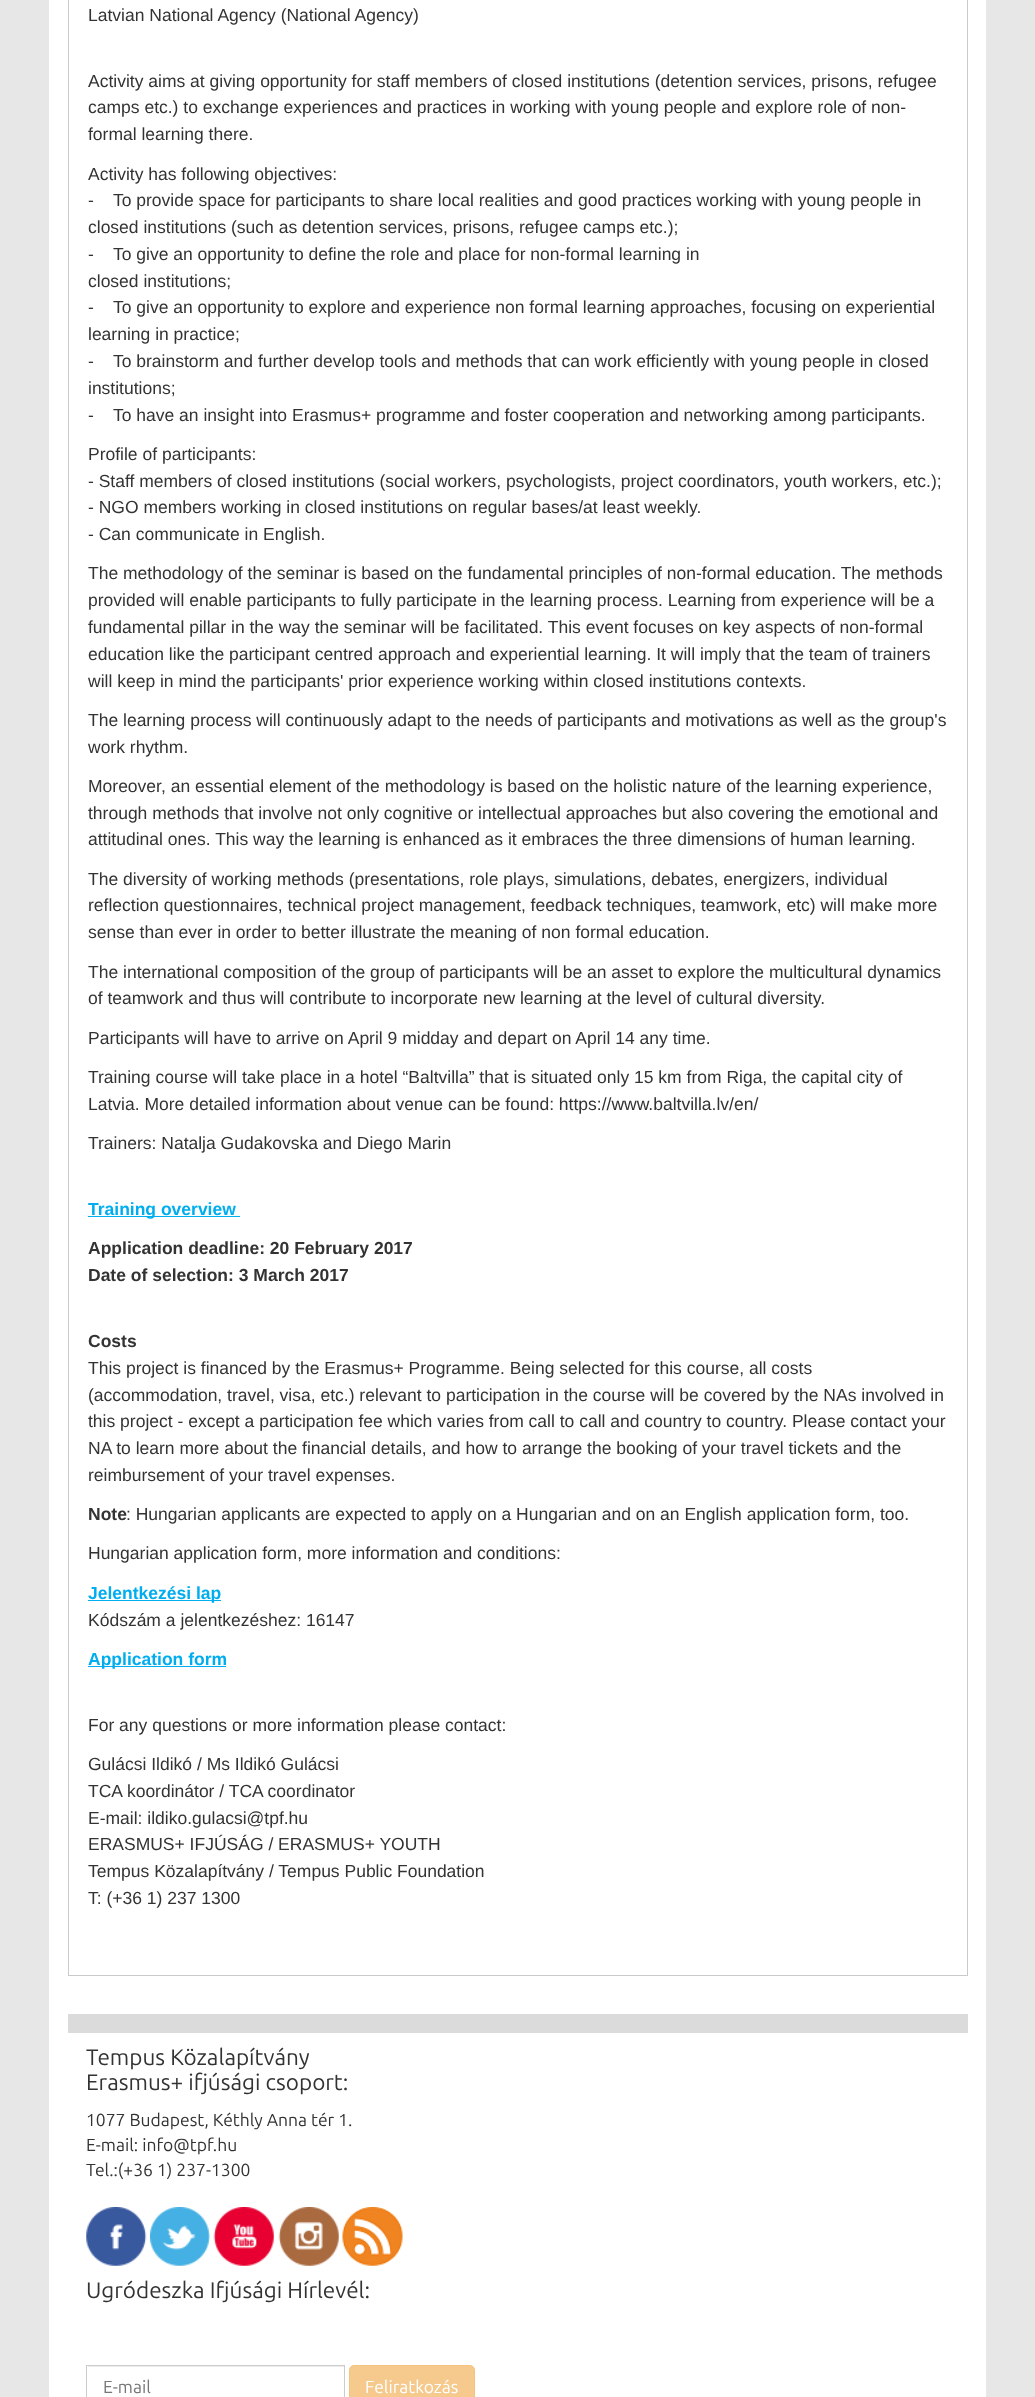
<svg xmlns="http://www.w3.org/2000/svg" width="1035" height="2397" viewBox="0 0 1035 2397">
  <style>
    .t1 { font: 17.5px Liberation Sans; fill: #333; }
    .t2 { font: bold 17.5px Liberation Sans; fill: #00aeef; }
    .t3 { font: bold 17.5px Liberation Sans; fill: #333; }
    .t4 { font: 22.5px Ubuntu; fill: #333; }
    .t5 { font: 17.5px Ubuntu; fill: #333; }
    .t6 { font: 17.5px Ubuntu; fill: #777; }
    .t7 { font: 17.5px Ubuntu; fill: #fff; }
  </style>
  <rect width="100%" height="100%" fill="#e7e7e7"/>
  <rect x="49" y="0" width="937" height="2397" fill="#fff"/>
  <rect x="68.5" y="-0.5" width="899" height="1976" fill="none" stroke="#cacaca"/>
  <text x="88" y="21" class="t1">Latvian National Agency (National Agency)</text>
  <text x="88" y="87" class="t1">Activity aims at giving opportunity for staff members of closed institutions (detention services, prisons, refugee</text>
  <text x="88" y="113" class="t1">camps etc.) to exchange experiences and practices in working with young people and explore role of non-</text>
  <text x="88" y="140" class="t1">formal learning there.</text>
  <text x="88" y="180" class="t1">Activity has following objectives:</text>
  <text x="88" y="206" class="t1" xml:space="preserve">-    To provide space for participants to share local realities and good practices working with young people in</text>
  <text x="88" y="233" class="t1">closed institutions (such as detention services, prisons, refugee camps etc.);</text>
  <text x="88" y="260" class="t1" xml:space="preserve">-    To give an opportunity to define the role and place for non-formal learning in</text>
  <text x="88" y="287" class="t1">closed institutions;</text>
  <text x="88" y="313" class="t1" xml:space="preserve">-    To give an opportunity to explore and experience non formal learning approaches, focusing on experiential</text>
  <text x="88" y="340" class="t1">learning in practice;</text>
  <text x="88" y="367" class="t1" xml:space="preserve">-    To brainstorm and further develop tools and methods that can work efficiently with young people in closed</text>
  <text x="88" y="394" class="t1">institutions;</text>
  <text x="88" y="421" class="t1" xml:space="preserve">-    To have an insight into Erasmus+ programme and foster cooperation and networking among participants.</text>
  <text x="88" y="460" class="t1">Profile of participants:</text>
  <text x="88" y="487" class="t1">- Staff members of closed institutions (social workers, psychologists, project coordinators, youth workers, etc.);</text>
  <text x="88" y="513" class="t1">- NGO members working in closed institutions on regular bases/at least weekly.</text>
  <text x="88" y="540" class="t1">- Can communicate in English.</text>
  <text x="88" y="579" class="t1">The methodology of the seminar is based on the fundamental principles of non-formal education. The methods</text>
  <text x="88" y="606" class="t1">provided will enable participants to fully participate in the learning process. Learning from experience will be a</text>
  <text x="88" y="633" class="t1">fundamental pillar in the way the seminar will be facilitated. This event focuses on key aspects of non-formal</text>
  <text x="88" y="660" class="t1">education like the participant centred approach and experiential learning. It will imply that the team of trainers</text>
  <text x="88" y="687" class="t1">will keep in mind the participants' prior experience working within closed institutions contexts.</text>
  <text x="88" y="726" class="t1">The learning process will continuously adapt to the needs of participants and motivations as well as the group's</text>
  <text x="88" y="753" class="t1">work rhythm.</text>
  <text x="88" y="792" class="t1">Moreover, an essential element of the methodology is based on the holistic nature of the learning experience,</text>
  <text x="88" y="819" class="t1">through methods that involve not only cognitive or intellectual approaches but also covering the emotional and</text>
  <text x="88" y="845" class="t1">attitudinal ones. This way the learning is enhanced as it embraces the three dimensions of human learning.</text>
  <text x="88" y="885" class="t1">The diversity of working methods (presentations, role plays, simulations, debates, energizers, individual</text>
  <text x="88" y="911" class="t1">reflection questionnaires, technical project management, feedback techniques, teamwork, etc) will make more</text>
  <text x="88" y="938" class="t1">sense than ever in order to better illustrate the meaning of non formal education.</text>
  <text x="88" y="978" class="t1">The international composition of the group of participants will be an asset to explore the multicultural dynamics</text>
  <text x="88" y="1004" class="t1">of teamwork and thus will contribute to incorporate new learning at the level of cultural diversity.</text>
  <text x="88" y="1044" class="t1">Participants will have to arrive on April 9 midday and depart on April 14 any time.</text>
  <text x="88" y="1083" class="t1">Training course will take place in a hotel “Baltvilla” that is situated only 15 km from Riga, the capital city of</text>
  <text x="88" y="1110" class="t1">Latvia. More detailed information about venue can be found: https://www.baltvilla.lv/en/</text>
  <text x="88" y="1149" class="t1">Trainers: Natalja Gudakovska and Diego Marin</text>
  <rect x="88" y="1216" width="152" height="1" fill="#00aeef"/>
  <text x="88" y="1215" class="t2">Training overview</text>
  <text x="88" y="1254" class="t3">Application deadline: 20 February 2017</text>
  <text x="88" y="1281" class="t3">Date of selection: 3 March 2017</text>
  <text x="88" y="1347" class="t3">Costs</text>
  <text x="88" y="1374" class="t1">This project is financed by the Erasmus+ Programme. Being selected for this course, all costs</text>
  <text x="88" y="1401" class="t1">(accommodation, travel, visa, etc.) relevant to participation in the course will be covered by the NAs involved in</text>
  <text x="88" y="1427" class="t1">this project - except a participation fee which varies from call to call and country to country. Please contact your</text>
  <text x="88" y="1454" class="t1">NA to learn more about the financial details, and how to arrange the booking of your travel tickets and the</text>
  <text x="88" y="1481" class="t1">reimbursement of your travel expenses.</text>
  <text x="88" y="1520" class="t3">Note</text>
  <text x="126" y="1520" class="t1">: Hungarian applicants are expected to apply on a Hungarian and on an English application form, too.</text>
  <text x="88" y="1559" class="t1">Hungarian application form, more information and conditions:</text>
  <rect x="88" y="1600" width="133" height="1" fill="#00aeef"/>
  <text x="88" y="1599" class="t2">Jelentkezési lap</text>
  <text x="88" y="1626" class="t1">Kódszám a jelentkezéshez: 16147</text>
  <rect x="88" y="1666" width="138" height="1" fill="#00aeef"/>
  <text x="88" y="1665" class="t2">Application form</text>
  <text x="88" y="1731" class="t1">For any questions or more information please contact:</text>
  <text x="88" y="1770" class="t1">Gulácsi Ildikó / Ms Ildikó Gulácsi</text>
  <text x="88" y="1797" class="t1">TCA koordinátor / TCA coordinator</text>
  <text x="88" y="1824" class="t1">E-mail: ildiko.gulacsi@tpf.hu</text>
  <text x="88" y="1850" class="t1">ERASMUS+ IFJÚSÁG / ERASMUS+ YOUTH</text>
  <text x="88" y="1877" class="t1">Tempus Közalapítvány / Tempus Public Foundation</text>
  <text x="88" y="1904" class="t1">T: (+36 1) 237 1300</text>
  <rect x="68" y="2014" width="900" height="19" fill="#dbdbdb"/>
  <text x="86" y="2065" class="t4">Tempus Közalapítvány</text>
  <text x="86" y="2090" class="t4">Erasmus+ ifjúsági csoport:</text>
  <text x="86" y="2126" class="t5">1077 Budapest, Kéthly Anna tér 1.</text>
  <text x="86" y="2151" class="t5">E-mail: info@tpf.hu</text>
  <text x="86" y="2176" class="t5">Tel.:(+36 1) 237-1300</text>
  <image x="86" y="2207" width="61" height="59" href="images/1.png"/>
  <image x="150" y="2207" width="60" height="59" href="images/2.png"/>
  <image x="213" y="2207" width="61" height="59" href="images/3.png"/>
  <image x="278" y="2207" width="61" height="59" href="images/4.png"/>
  <image x="342" y="2207" width="61" height="59" href="images/5.png"/>
  <text x="86" y="2298" class="t4">Ugródeszka Ifjúsági Hírlevél:</text>
  <rect x="88" y="2366" width="256" height="1" fill="#ececec"/>
  <rect x="86.5" y="2365.5" width="258" height="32" fill="none" stroke="#ccc"/>
  <text x="103" y="2393" class="t6">E-mail</text>
  <rect x="349.5" y="2365.5" width="125" height="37" rx="4.5" fill="#f5ca8c" stroke="#f4c37c"/>
  <text x="365" y="2393" class="t7">Feliratkozás</text>
</svg>
